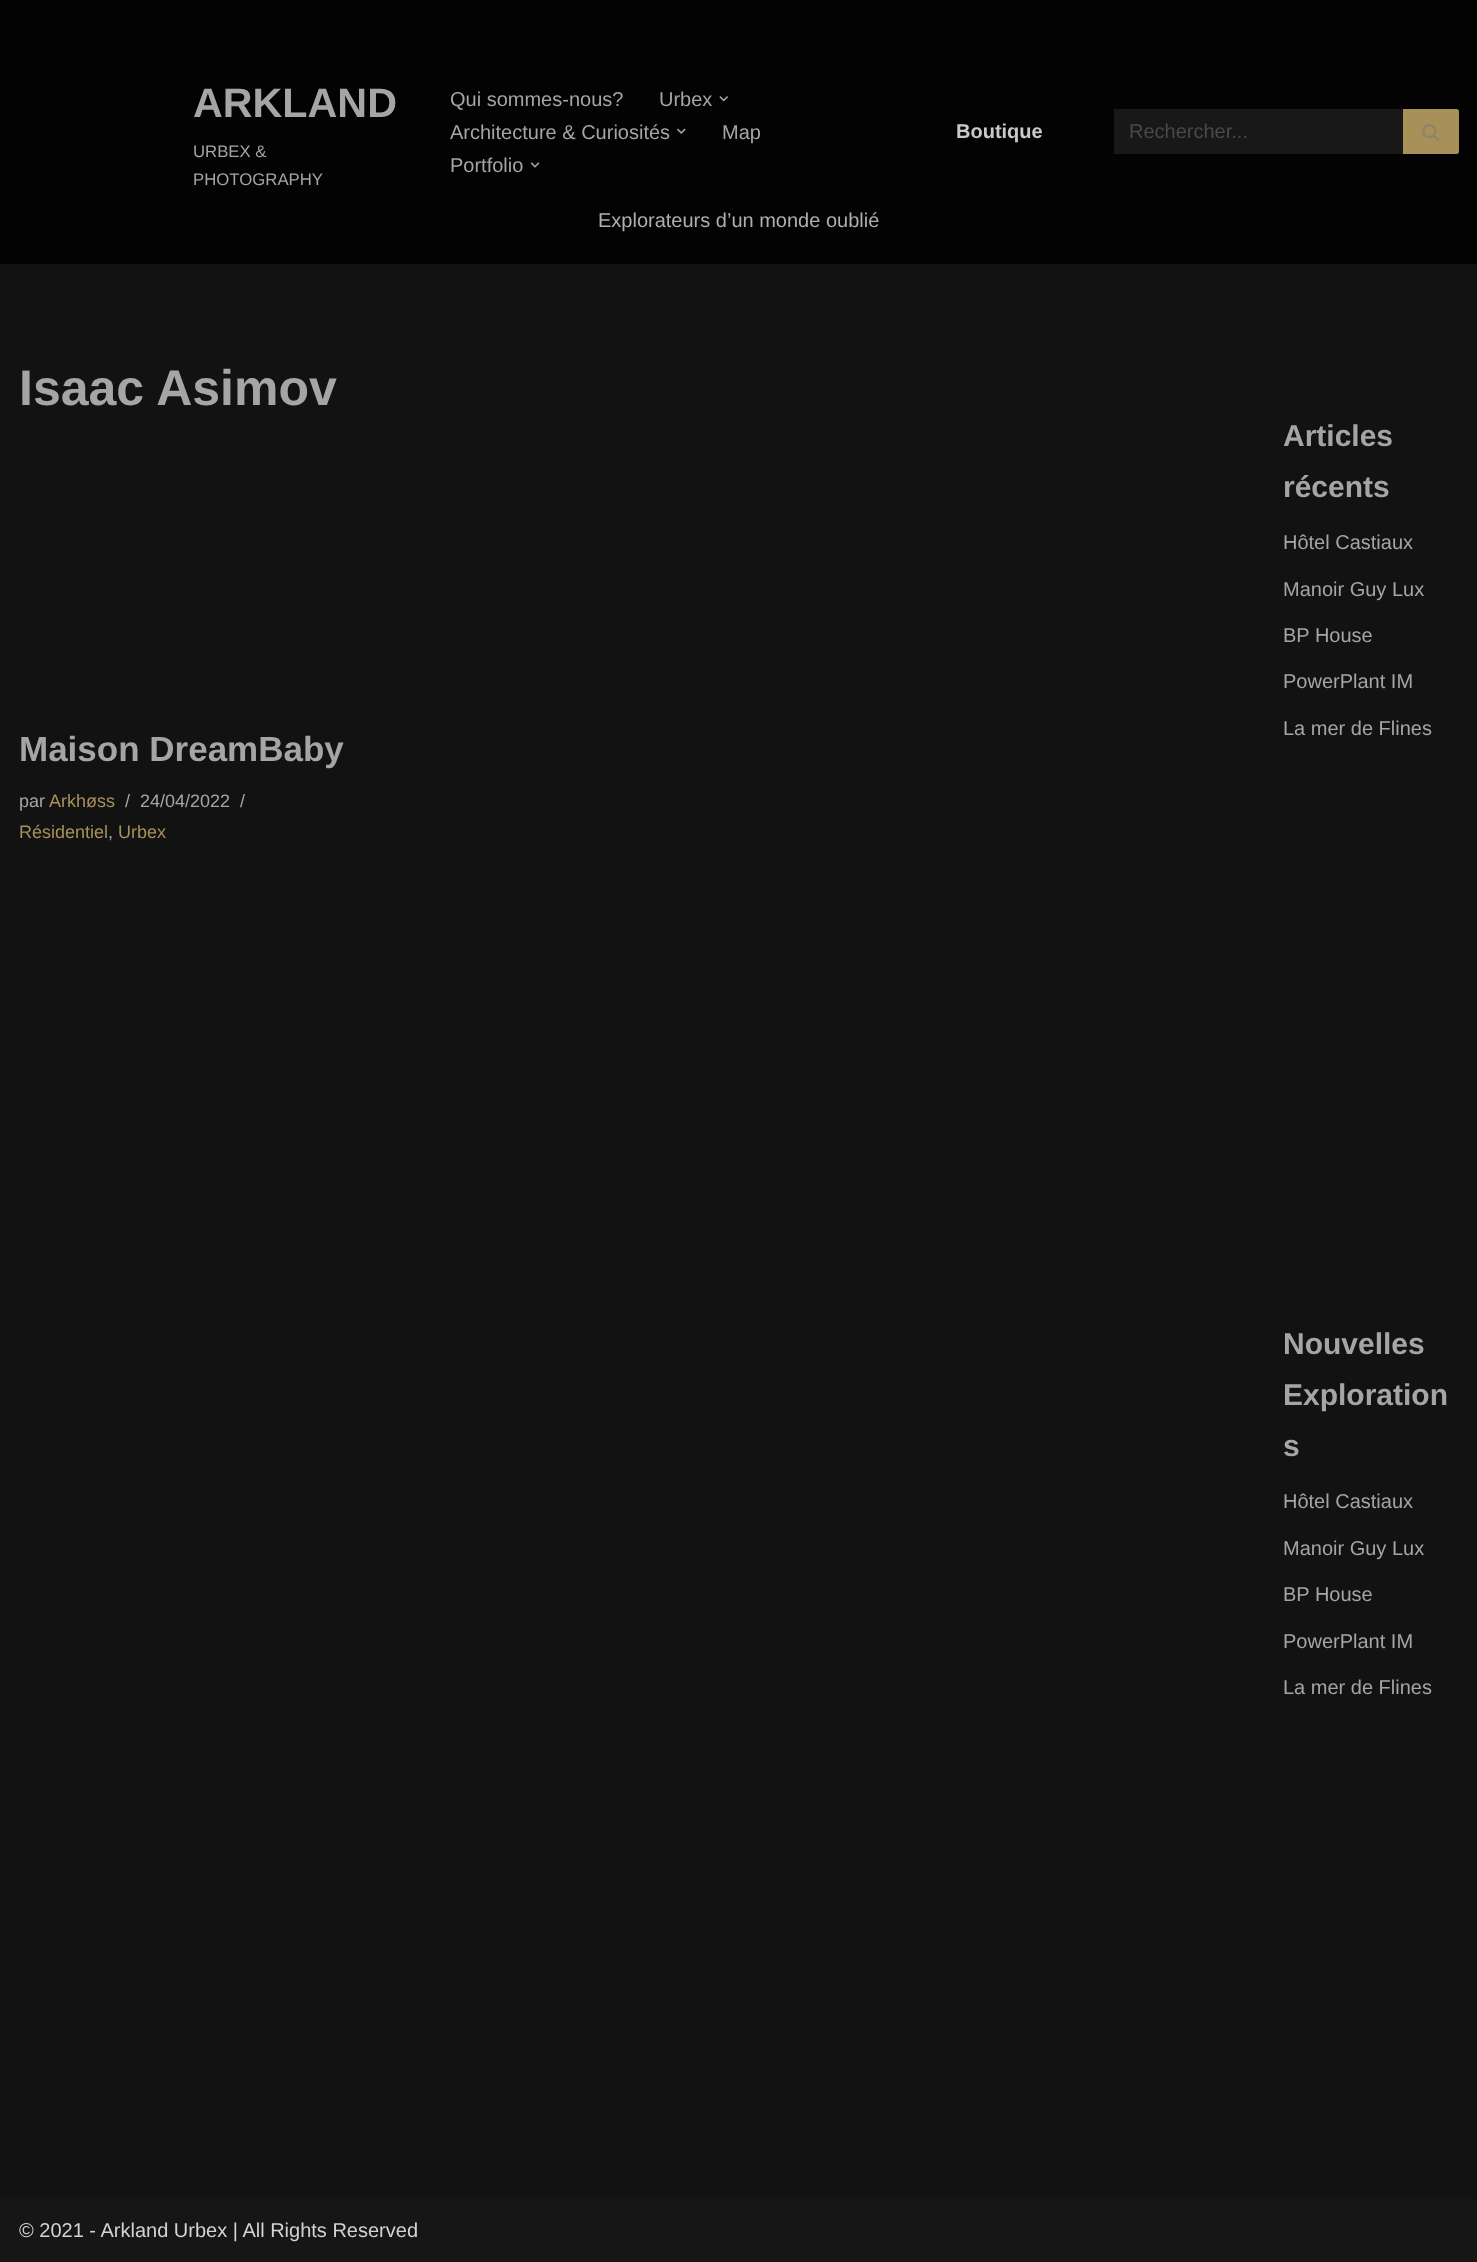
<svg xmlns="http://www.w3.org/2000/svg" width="1477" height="2262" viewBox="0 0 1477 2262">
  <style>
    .t1 { font: bold 41.25px Liberation Sans; fill: #a5a5a5; }
    .t2 { font: 16.75px Liberation Sans; fill: #a5a5a5; }
    .t3 { font: 20px Liberation Sans; fill: #a5a5a5; }
    .t4 { font: bold 20px Liberation Sans; fill: #c9c9c9; }
    .t5 { font: 20px Liberation Sans; fill: #494949; }
    .t6 { font: 20px Liberation Sans; fill: #afafaf; }
    .t7 { font: bold 50px Liberation Sans; fill: #a5a5a5; }
    .t8 { font: bold 35px Liberation Sans; fill: #a5a5a5; }
    .t9 { font: 18px Liberation Sans; fill: #a5a5a5; }
    .t10 { font: 18px Liberation Sans; fill: #a89059; }
    .t11 { font: bold 30px Liberation Sans; fill: #a5a5a5; }
    .t12 { font: 20px Liberation Sans; fill: #d3d3d3; }
  </style>
  <rect width="100%" height="100%" fill="#121212"/>
  <rect x="0" y="0" width="1477" height="264" fill="#030303"/>
  <text x="193" y="117" class="t1">ARKLAND</text>
  <text x="193" y="157" class="t2">URBEX &amp;</text>
  <text x="193" y="185" class="t2">PHOTOGRAPHY</text>
  <text x="450" y="106" class="t3">Qui sommes-nous?</text>
  <text x="659" y="106" class="t3">Urbex</text>
  <image x="719" y="96" width="9" height="6" href="images/1.png"/>
  <text x="450" y="139" class="t3">Architecture &amp; Curiosités</text>
  <image x="677" y="128" width="9" height="6" href="images/2.png"/>
  <text x="722" y="139" class="t3">Map</text>
  <text x="450" y="172" class="t3">Portfolio</text>
  <image x="530" y="162" width="10" height="6" href="images/3.png"/>
  <text x="956" y="138" class="t4">Boutique</text>
  <rect x="1114" y="109" width="289" height="45" fill="#181818"/>
  <text x="1129" y="138" class="t5">Rechercher...</text>
  <path d="M1403 109H1456.5C1458 109 1459 110 1459 111.5V151.5C1459 153 1458 154 1456.5 154H1403Z" fill="#a89059"/>
  <image x="1422" y="124" width="18" height="17" href="images/4.png"/>
  <text x="598" y="227" class="t6">Explorateurs d’un monde oublié</text>
  <text x="19" y="405" class="t7">Isaac Asimov</text>
  <text x="19" y="761" class="t8">Maison DreamBaby</text>
  <text x="19" y="807" class="t9">par</text>
  <text x="49" y="807" class="t10">Arkhøss</text>
  <text x="125" y="807" class="t9">/</text>
  <text x="140" y="807" class="t9">24/04/2022</text>
  <text x="240" y="807" class="t9">/</text>
  <text x="19" y="838" class="t10">Résidentiel</text>
  <text x="108" y="838" class="t9">,</text>
  <text x="118" y="838" class="t10">Urbex</text>
  <text x="1283" y="446" class="t11">Articles</text>
  <text x="1283" y="497" class="t11">récents</text>
  <text x="1283" y="549" class="t3">Hôtel Castiaux</text>
  <text x="1283" y="596" class="t3">Manoir Guy Lux</text>
  <text x="1283" y="642" class="t3">BP House</text>
  <text x="1283" y="688" class="t3">PowerPlant IM</text>
  <text x="1283" y="735" class="t3">La mer de Flines</text>
  <text x="1283" y="1354" class="t11">Nouvelles</text>
  <text x="1283" y="1405" class="t11">Exploration</text>
  <text x="1283" y="1456" class="t11">s</text>
  <text x="1283" y="1508" class="t3">Hôtel Castiaux</text>
  <text x="1283" y="1555" class="t3">Manoir Guy Lux</text>
  <text x="1283" y="1601" class="t3">BP House</text>
  <text x="1283" y="1648" class="t3">PowerPlant IM</text>
  <text x="1283" y="1694" class="t3">La mer de Flines</text>
  <rect x="0" y="2199" width="1477" height="63" fill="#161616"/>
  <text x="19" y="2237" class="t12">© 2021 - Arkland Urbex | All Rights Reserved</text>
</svg>
